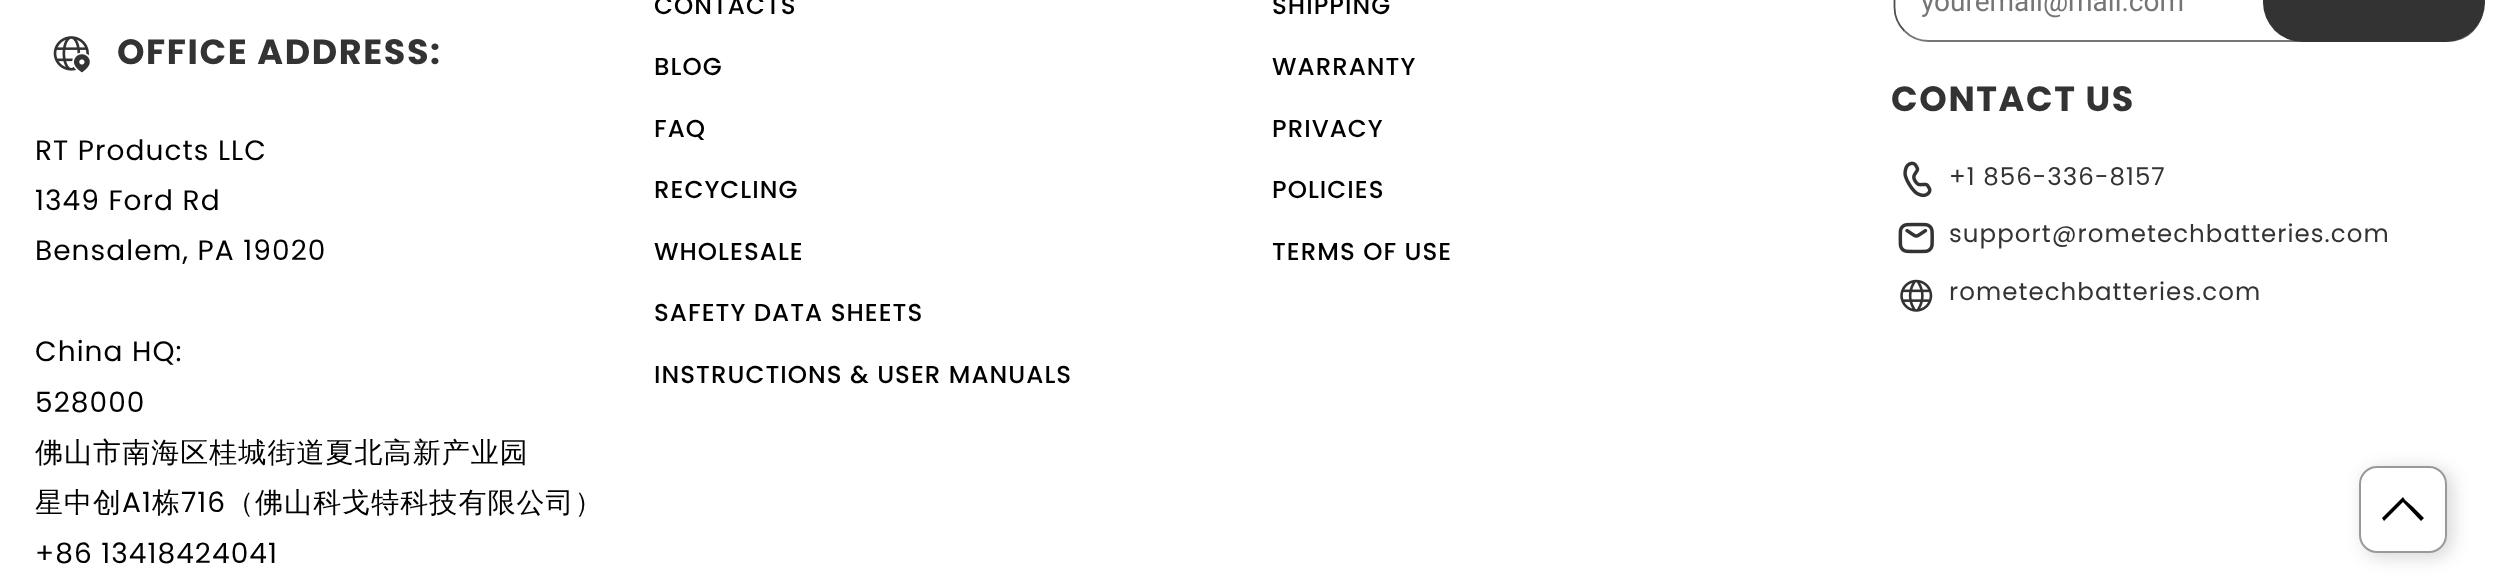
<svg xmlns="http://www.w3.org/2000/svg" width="2516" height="588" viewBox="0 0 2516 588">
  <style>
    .t1 { font: bold 35px Poppins; letter-spacing: 1.6px; fill: #333; }
    .t2 { font: 28px Poppins; letter-spacing: 1.05px; fill: #000; }
    .t3 { font: 500 28px WenQuanYi Zen Hei; letter-spacing: 1.05px; fill: #000; }
    .t4 { font: 500 24.5px Poppins; letter-spacing: 1.05px; fill: #000; }
    .t5 { font: 28px Roboto; fill: #757575; }
    .t6 { font: 24.5px Poppins; letter-spacing: 1.05px; fill: #333; }
  </style>
  <rect width="100%" height="100%" fill="#fff"/>
  <image x="53" y="36" width="37" height="37" href="images/1.png"/>
  <text x="117" y="64" class="t1">OFFICE ADDRESS:</text>
  <text x="35" y="160" class="t2">RT Products LLC</text>
  <text x="35" y="210" class="t2">1349 Ford Rd</text>
  <text x="35" y="260" class="t2">Bensalem, PA 19020</text>
  <text x="35" y="361" class="t2">China HQ:</text>
  <text x="35" y="412" class="t2">528000</text>
  <text x="35" y="462" class="t3">佛山市南海区桂城街道夏北高新产业园</text>
  <text x="35" y="512" class="t3">星中创</text>
  <text x="122" y="512" class="t2">A1</text>
  <text x="152" y="512" class="t3">栋</text>
  <text x="181" y="512" class="t2">716</text>
  <text x="226" y="512" class="t3">（佛山科戈特科技有限公司）</text>
  <text x="35" y="563" class="t2">+86 13418424041</text>
  <text x="654" y="14" class="t4">CONTACTS</text>
  <text x="654" y="75" class="t4">BLOG</text>
  <text x="654" y="137" class="t4">FAQ</text>
  <text x="654" y="198" class="t4">RECYCLING</text>
  <text x="654" y="260" class="t4">WHOLESALE</text>
  <text x="654" y="321" class="t4">SAFETY DATA SHEETS</text>
  <text x="654" y="383" class="t4">INSTRUCTIONS &amp; USER MANUALS</text>
  <text x="1272" y="14" class="t4">SHIPPING</text>
  <text x="1272" y="75" class="t4">WARRANTY</text>
  <text x="1272" y="137" class="t4">PRIVACY</text>
  <text x="1272" y="198" class="t4">POLICIES</text>
  <text x="1272" y="260" class="t4">TERMS OF USE</text>
  <path d="M2472.5-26C2479-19.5 2482.5-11 2482.5-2V7C2482.5 16 2479 24.5 2472.5 31C2466 37.5 2457.5 41 2448 41H1928.5C1919.5 41 1911 37.5 1904.5 31" fill="none" stroke="#767676" stroke-width="1.8"/>
  <path d="M1904.5 31C1898 24.5 1894.5 16 1894.5 7V-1.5C1894.5-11 1898-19.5 1904.5-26C1911-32.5 1919.5-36 1928.5-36H2448C2457.5-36 2466-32.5 2472.5-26" fill="none" stroke="#4f4f4f" stroke-width="1.8"/>
  <text x="1921" y="11" class="t5">youremail@mail.com</text>
  <rect x="2263" y="-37" width="222" height="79" rx="39.5" fill="#333"/>
  <text x="1891" y="111" class="t1">CONTACT US</text>
  <image x="1903" y="161" width="29" height="37" href="images/2.png"/>
  <text x="1949" y="185" class="t6">+1 856-336-8157</text>
  <image x="1898" y="222" width="36" height="32" href="images/3.png"/>
  <text x="1949" y="242" class="t6">support@rometechbatteries.com</text>
  <image x="1900" y="279" width="33" height="33" href="images/4.png"/>
  <text x="1949" y="300" class="t6">rometechbatteries.com</text>
  <rect x="2364" y="469" width="88" height="88" rx="18" fill="#33333333" filter="blur(9px)"/>
  <rect x="2359" y="466" width="88" height="87" rx="18" fill="#fff"/>
  <rect x="2360" y="467" width="86" height="85" rx="17" fill="none" stroke="#33333380" stroke-width="2"/>
  <path d="M2405 500L2403 497L2382 518L2384 521L2403 502L2421 521L2424 518L2413 507Z" fill="#000"/>
</svg>
